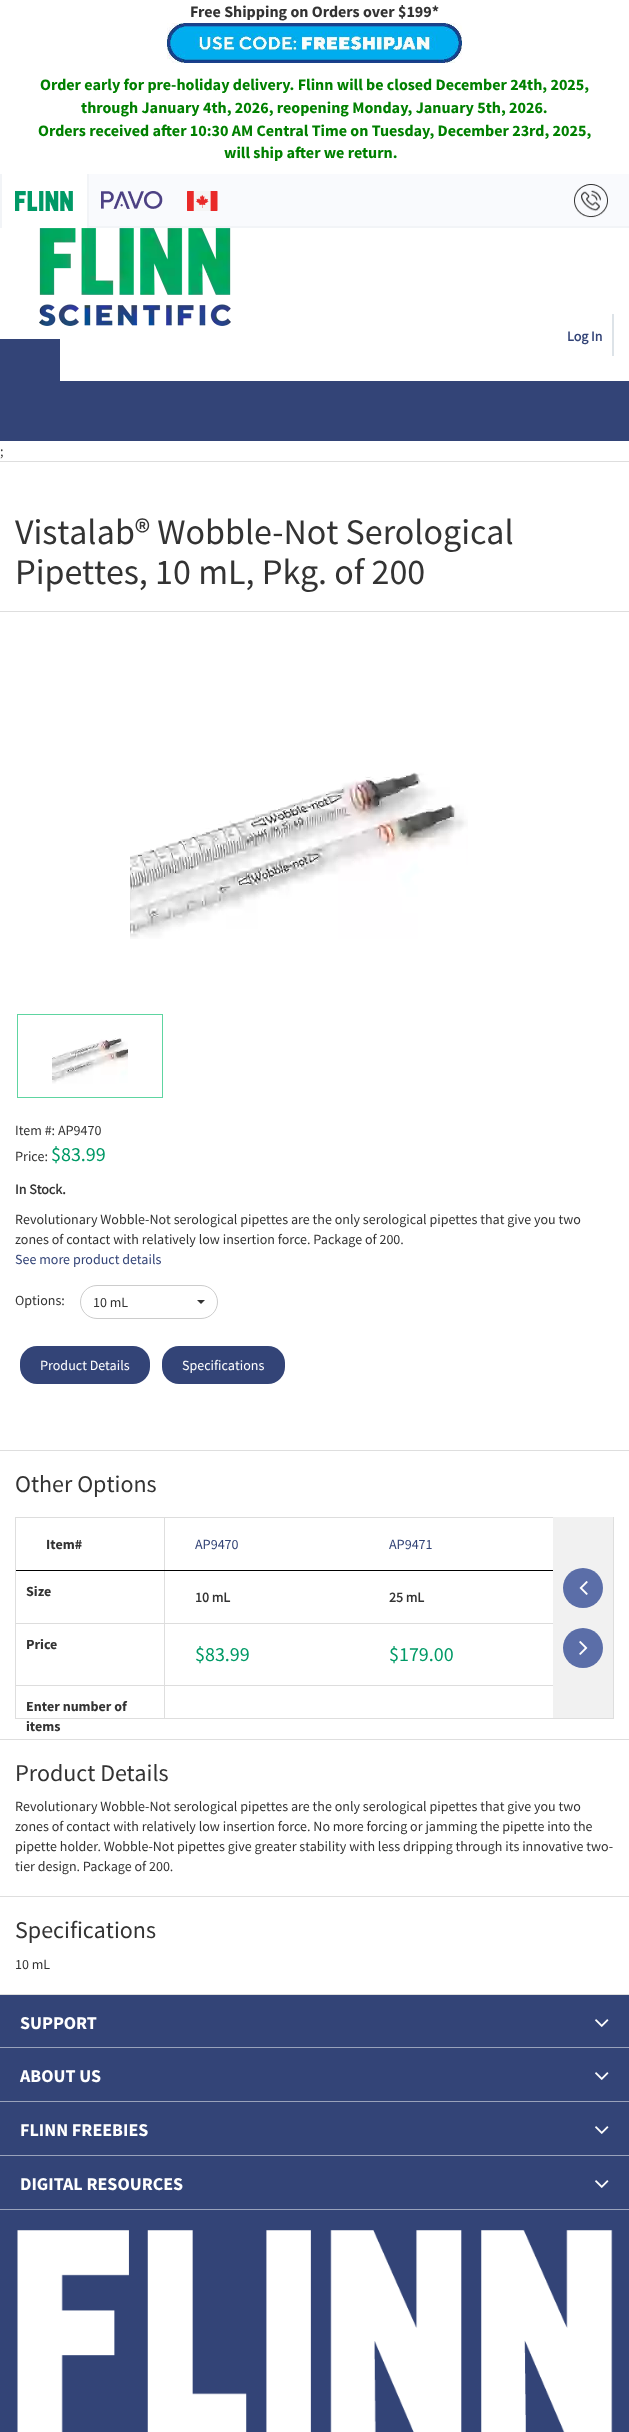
<svg xmlns="http://www.w3.org/2000/svg" width="629" height="2432" viewBox="0 0 629 2432">
  <style>
    .t1 { font: bold 16px Source Sans Pro; fill: #333; }
    .t2 { font: bold 16px Source Sans Pro; fill: #008000; }
    .t3 { font: bold 14px 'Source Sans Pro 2'; fill: #347; }
    .t4 { font: 14px Source Sans Pro; fill: #333; }
    .t5 { font: 36px Source Sans Pro; fill: #333; }
    .t6 { font: 20px Source Sans Pro; fill: #009a66; }
    .t7 { font: bold 14px 'Source Sans Pro 2'; fill: #333; }
    .t8 { font: 14px Source Sans Pro; fill: #347; }
    .t9 { font: 14px Source Sans Pro; fill: #fff; }
    .t10 { font: 24px Source Sans Pro; fill: #333; }
    .t11 { font: bold 14px Source Sans Pro; fill: #333; }
    .t12 { font: bold 18px Source Sans Pro; fill: #fff; }
  </style>
  <rect width="100%" height="100%" fill="#fff"/>
  <text x="190" y="17" class="t1">Free Shipping on Orders over $199*</text>
  <image x="167" y="23" width="295" height="40" href="images/1.png"/>
  <text x="40" y="90" class="t2">Order early for pre-holiday delivery. Flinn will be closed December 24th, 2025,</text>
  <text x="81" y="113" class="t2">through January 4th, 2026, reopening Monday, January 5th, 2026.</text>
  <text x="38" y="136" class="t2">Orders received after 10:30 AM Central Time on Tuesday, December 23rd, 2025,</text>
  <text x="224" y="158" class="t2">will ship after we return.</text>
  <rect x="89" y="174" width="540" height="52" fill="#f9fafd"/>
  <rect x="89" y="226" width="540" height="2" fill="#f2f4f7"/>
  <rect x="87" y="174" width="2" height="54" fill="#f2f4f7"/>
  <rect x="0" y="174" width="2" height="54" fill="#f2f4f7"/>
  <image x="15" y="191" width="58" height="20" href="images/2.png"/>
  <image x="101" y="191" width="62" height="18" href="images/3.png"/>
  <image x="187" y="191" width="31" height="20" href="images/4.png"/>
  <image x="574" y="184" width="34" height="34" href="images/5.png"/>
  <image x="39" y="228" width="192" height="98" href="images/6.png"/>
  <text x="567" y="341" class="t3">Log In</text>
  <rect x="612" y="314" width="2" height="42" fill="#dde3e8"/>
  <rect x="0" y="381" width="629" height="60" fill="#347"/>
  <rect x="0" y="339" width="60" height="42" fill="#347"/>
  <text x="0" y="456" class="t4">;</text>
  <rect x="0" y="461" width="629" height="1" fill="#dedede"/>
  <rect x="0" y="611" width="629" height="1" fill="#dedede"/>
  <text x="15" y="544" class="t5">Vistalab® Wobble-Not Serological</text>
  <text x="15" y="584" class="t5">Pipettes, 10 mL, Pkg. of 200</text>
  <image x="130" y="772" width="338" height="167" href="images/7.png"/>
  <rect x="17.5" y="1014.5" width="145" height="83" fill="none" stroke="#5ed5a1"/>
  <image x="52" y="1038" width="76" height="46" href="images/8.png"/>
  <text x="15" y="1135" class="t4">Item #: AP9470</text>
  <text x="15" y="1161" class="t4">Price:</text>
  <text x="51" y="1161" class="t6">$83.99</text>
  <text x="15" y="1194" class="t7">In Stock.</text>
  <text x="15" y="1224" class="t4">Revolutionary Wobble-Not serological pipettes are the only serological pipettes that give you two</text>
  <text x="15" y="1244" class="t4">zones of contact with relatively low insertion force. Package of 200.</text>
  <text x="15" y="1264" class="t8">See more product details</text>
  <text x="15" y="1305" class="t4">Options:</text>
  <rect x="80.5" y="1285.5" width="137" height="33" rx="16.5" fill="none" stroke="#ccc"/>
  <text x="93" y="1307" class="t4">10 mL</text>
  <path d="M197 1300H205L201 1304Z" fill="#333"/>
  <rect x="20" y="1346" width="130" height="38" rx="17" fill="#347"/>
  <text x="40" y="1370" class="t9">Product Details</text>
  <rect x="162" y="1346" width="123" height="38" rx="17" fill="#347"/>
  <text x="182" y="1370" class="t9">Specifications</text>
  <rect x="0" y="1450" width="629" height="1" fill="#dedede"/>
  <text x="15" y="1492" class="t10">Other Options</text>
  <rect x="613" y="1517" width="1" height="202" fill="#dedede"/>
  <rect x="15" y="1718" width="599" height="1" fill="#dedede"/>
  <rect x="15" y="1517" width="1" height="202" fill="#dedede"/>
  <rect x="164" y="1517" width="1" height="201" fill="#dedede"/>
  <text x="46" y="1549" class="t11">Item#</text>
  <rect x="16" y="1517" width="537" height="1" fill="#ddd"/>
  <text x="195" y="1549" class="t8">AP9470</text>
  <text x="389" y="1549" class="t8">AP9471</text>
  <text x="26" y="1596" class="t11">Size</text>
  <rect x="16" y="1570" width="537" height="1" fill="#000"/>
  <text x="195" y="1602" class="t7">10 mL</text>
  <text x="389" y="1602" class="t7">25 mL</text>
  <text x="26" y="1649" class="t11">Price</text>
  <rect x="16" y="1623" width="537" height="1" fill="#ddd"/>
  <text x="195" y="1661" class="t6">$83.99</text>
  <text x="389" y="1661" class="t6">$179.00</text>
  <rect x="16" y="1685" width="537" height="1" fill="#ddd"/>
  <text x="26" y="1711" class="t11">Enter number of</text>
  <text x="26" y="1731" class="t11">items</text>
  <rect x="553" y="1517" width="60" height="201" fill="#f1f1f1"/>
  <circle cx="583" cy="1588" r="20" fill="#5b6ea8"/>
  <image x="579" y="1581" width="9" height="14" href="images/9.png"/>
  <circle cx="583" cy="1648" r="20" fill="#5b6ea8"/>
  <image x="579" y="1641" width="9" height="14" href="images/10.png"/>
  <rect x="0" y="1739" width="629" height="1" fill="#dedede"/>
  <text x="15" y="1781" class="t10">Product Details</text>
  <text x="15" y="1811" class="t4">Revolutionary Wobble-Not serological pipettes are the only serological pipettes that give you two</text>
  <text x="15" y="1831" class="t4">zones of contact with relatively low insertion force. No more forcing or jamming the pipette into the</text>
  <text x="15" y="1851" class="t4">pipette holder. Wobble-Not pipettes give greater stability with less dripping through its innovative two-</text>
  <text x="15" y="1871" class="t4">tier design. Package of 200.</text>
  <rect x="0" y="1896" width="629" height="1" fill="#dedede"/>
  <text x="15" y="1938" class="t10">Specifications</text>
  <text x="15" y="1969" class="t4">10 mL</text>
  <rect x="0" y="1994" width="629" height="1" fill="#dedede"/>
  <rect x="0" y="1995" width="629" height="437" fill="#347"/>
  <rect x="0" y="2047" width="629" height="1" fill="#99a2bb"/>
  <text x="20" y="2029" class="t12">SUPPORT</text>
  <image x="595" y="2019" width="14" height="8" href="images/11.png"/>
  <rect x="0" y="2101" width="629" height="1" fill="#99a2bb"/>
  <text x="20" y="2082" class="t12">ABOUT US</text>
  <image x="595" y="2072" width="14" height="8" href="images/11.png"/>
  <rect x="0" y="2155" width="629" height="1" fill="#99a2bb"/>
  <text x="20" y="2136" class="t12">FLINN FREEBIES</text>
  <image x="595" y="2126" width="14" height="8" href="images/11.png"/>
  <rect x="0" y="2209" width="629" height="1" fill="#99a2bb"/>
  <text x="20" y="2190" class="t12">DIGITAL RESOURCES</text>
  <image x="595" y="2180" width="14" height="8" href="images/11.png"/>
  <image x="17" y="2230" width="596" height="202" href="images/12.png"/>
</svg>
